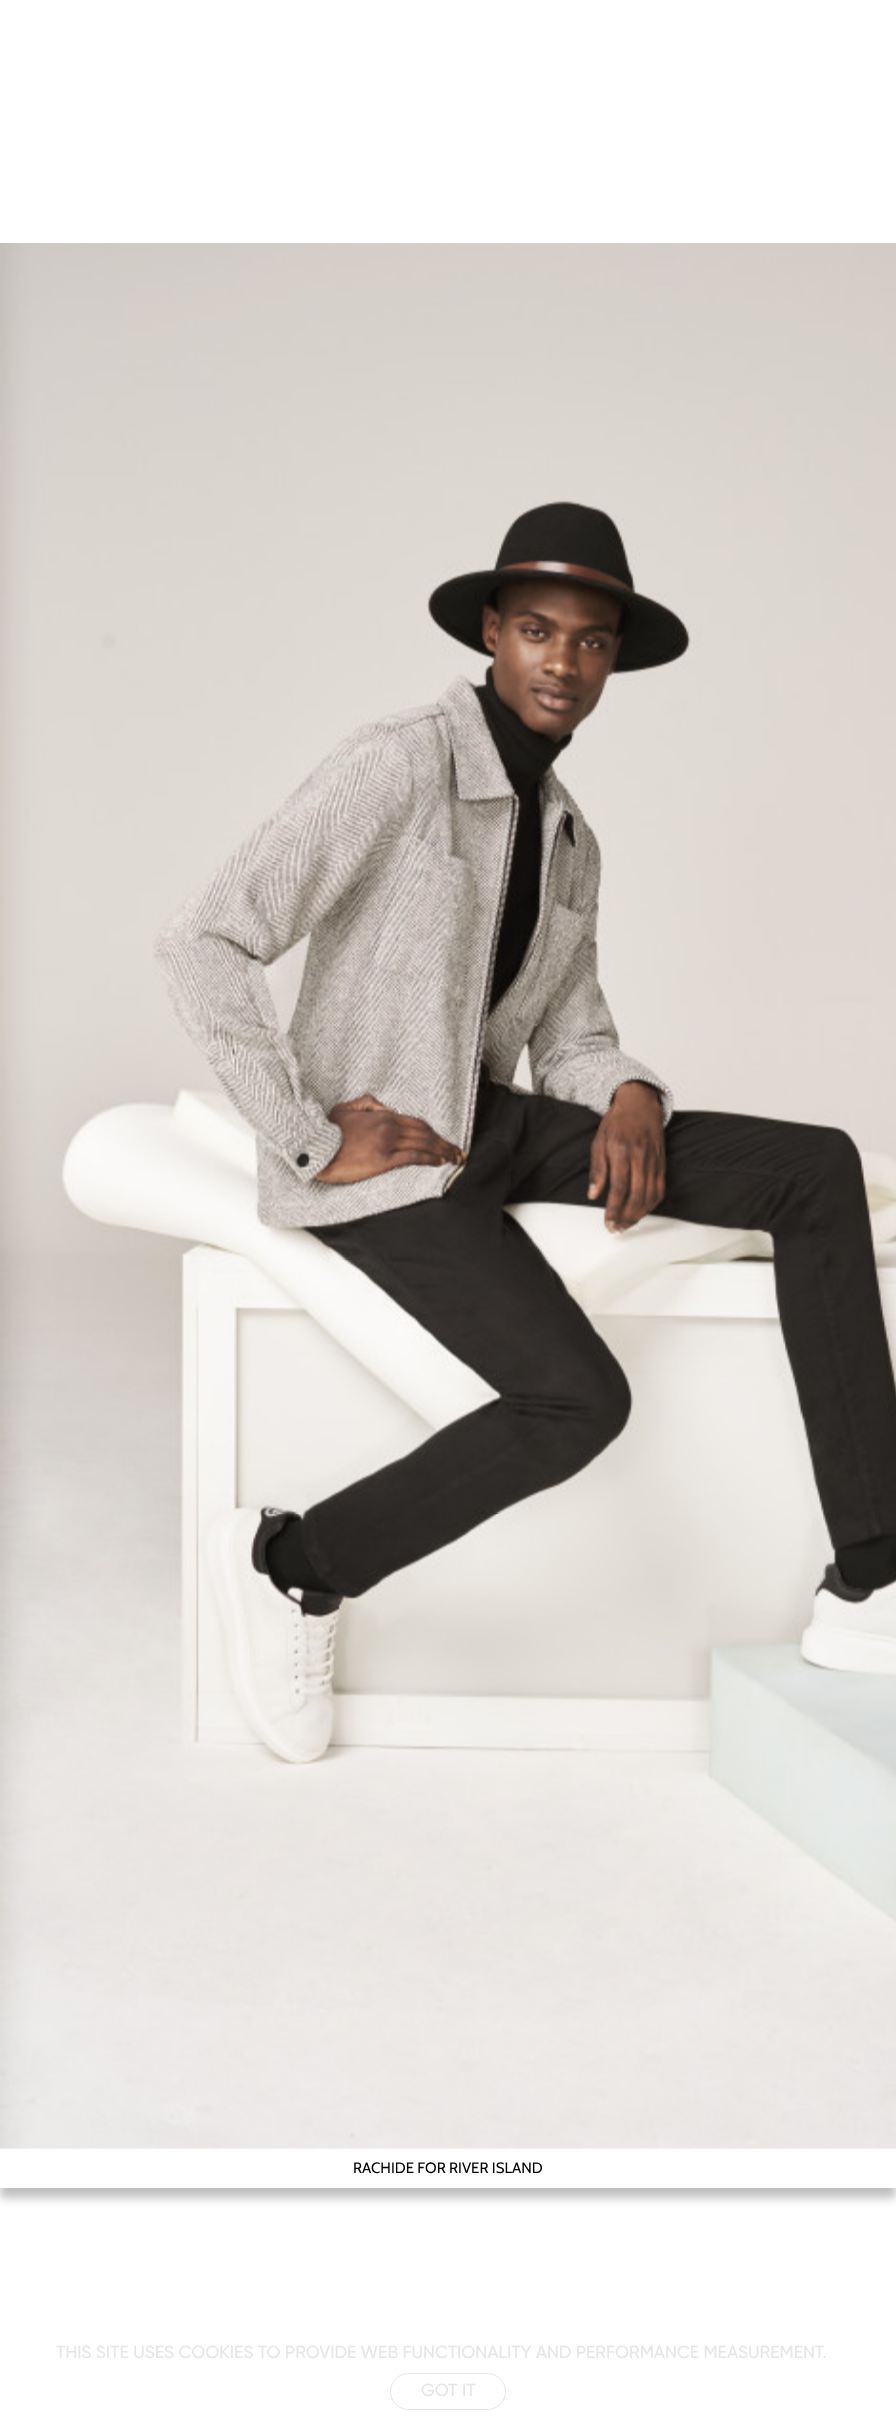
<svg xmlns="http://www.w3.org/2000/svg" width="896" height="2429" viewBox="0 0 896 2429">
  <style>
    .t1 { font: 15px Cabin; fill: #000; }
    .t2 { font: 500 17.5px Gilroy; fill: #e6e6e6; }
  </style>
  <rect width="100%" height="100%" fill="#fff"/>
  <rect x="0" y="2159" width="896" height="39" fill="#00000040" filter="blur(5px)"/>
  <image x="0" y="243" width="896" height="1906" href="images/1.png"/>
  <rect x="0" y="2150" width="896" height="38" fill="#fff"/>
  <text x="353" y="2173" class="t1">RACHIDE FOR RIVER ISLAND</text>
  <text x="56" y="2358" class="t2">THIS SITE USES COOKIES TO PROVIDE WEB FUNCTIONALITY AND PERFORMANCE MEASUREMENT.</text>
  <rect x="390.5" y="2373.5" width="115" height="36" rx="18" fill="none" stroke="#e6e6e6"/>
  <text x="421" y="2396" class="t2">GOT IT</text>
</svg>
